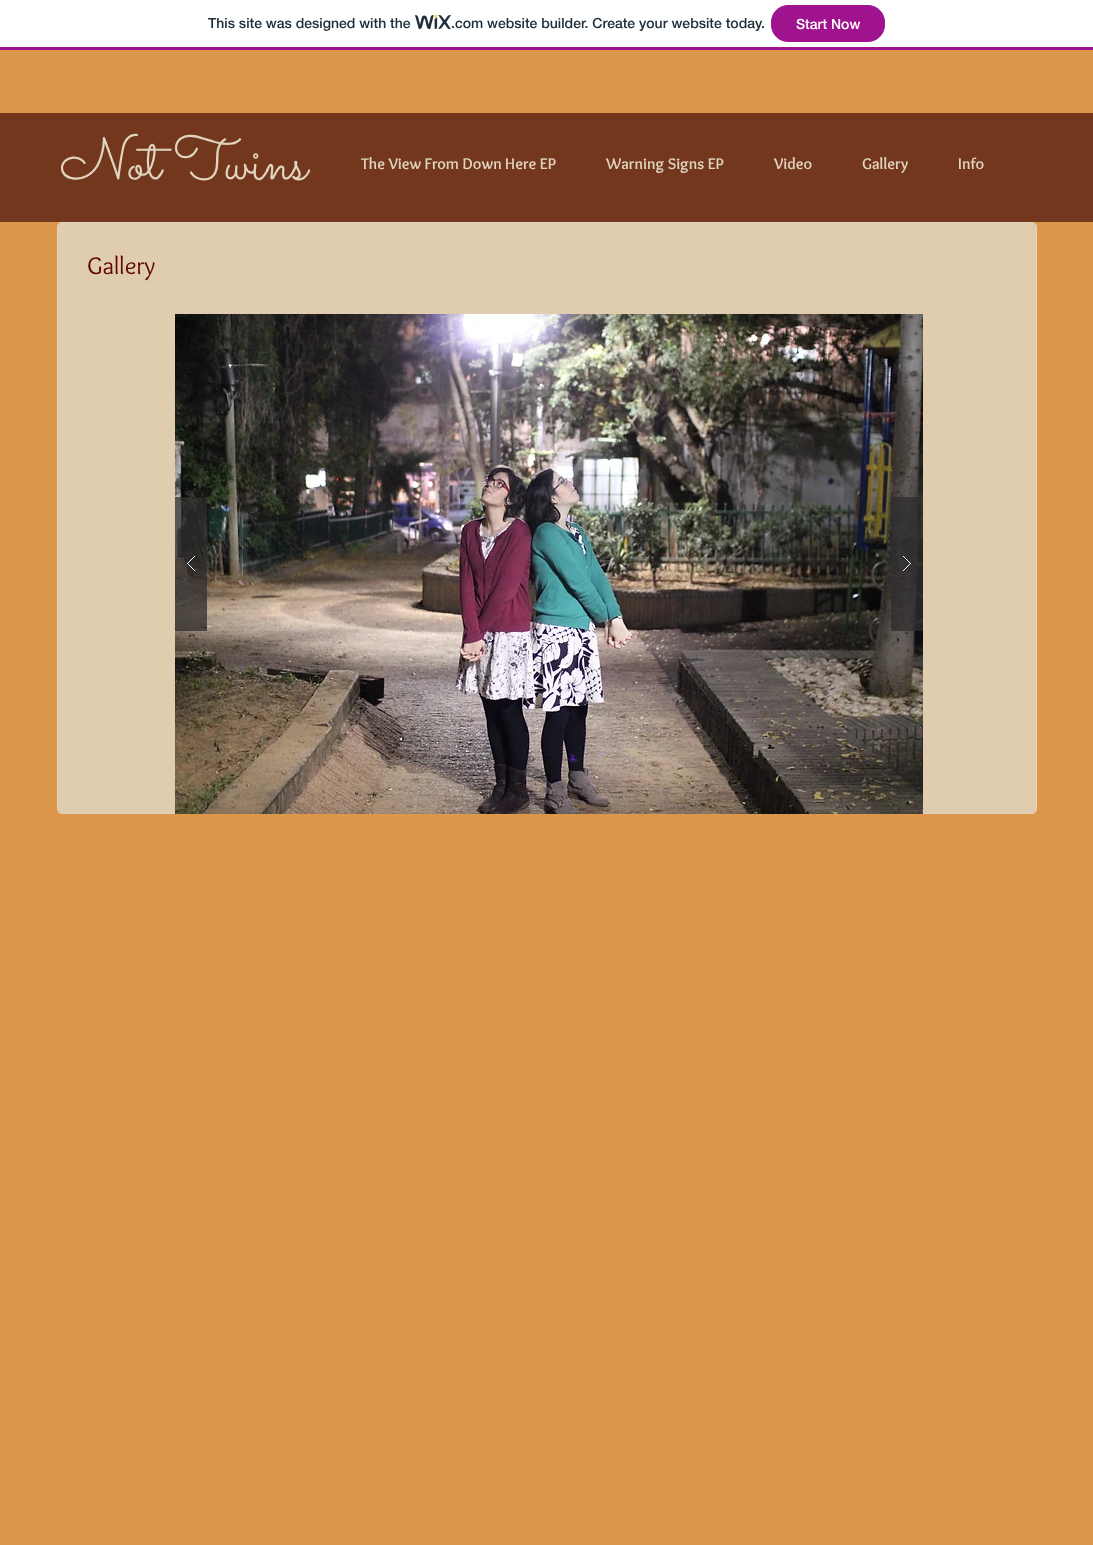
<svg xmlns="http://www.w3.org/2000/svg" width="1093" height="1545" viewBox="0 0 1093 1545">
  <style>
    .t1 { font: 500 14px 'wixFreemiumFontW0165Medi'; fill: #20303c; }
    .t2 { font: 500 14px 'wixFreemiumFontW0165Medi'; fill: #fff; }
    .t3 { font: 60px Sacramento; fill: #e0d4be; }
    .t4 { font: bold 16px Overlock; fill: #e0d4be; }
    .t5 { font: 25px Overlock; fill: #600505; }
  </style>
  <rect width="100%" height="100%" fill="#fff"/>
  <rect x="0" y="47" width="1093" height="3" fill="#a0138e"/>
  <text x="208" y="28" class="t1">This site was designed with the</text>
  <image x="415" y="15" width="36" height="15" href="images/1.png"/>
  <text x="451" y="28" class="t1">.com website builder. Create your website today.</text>
  <rect x="771.5" y="5.5" width="113" height="36" rx="16.5" fill="#a0138e" stroke="#a0138e"/>
  <text x="796" y="29" class="t2">Start Now</text>
  <rect x="0" y="50" width="1093" height="1495" fill="#dd974b"/>
  <rect x="0" y="113" width="1093" height="109" fill="#73371d"/>
  <text x="60" y="179" class="t3">Not Twins</text>
  <text x="361" y="169" class="t4">The View From Down Here EP</text>
  <text x="606" y="169" class="t4">Warning Signs EP</text>
  <text x="774" y="169" class="t4">Video</text>
  <text x="862" y="169" class="t4">Gallery</text>
  <text x="958" y="169" class="t4">Info</text>
  <rect x="57.5" y="222.5" width="979" height="591" rx="4.5" fill="#e0cdb0" stroke="#e0d4be"/>
  <text x="87" y="274" class="t5">Gallery</text>
  <image x="175" y="314" width="748" height="500" href="images/2.png"/>
  <rect x="175" y="497" width="32" height="134" fill="#2f2e2ebf"/>
  <image x="187" y="556" width="8" height="16" href="images/3.png"/>
  <rect x="891" y="497" width="32" height="134" fill="#2f2e2ebf"/>
  <image x="903" y="556" width="8" height="16" href="images/4.png"/>
</svg>
